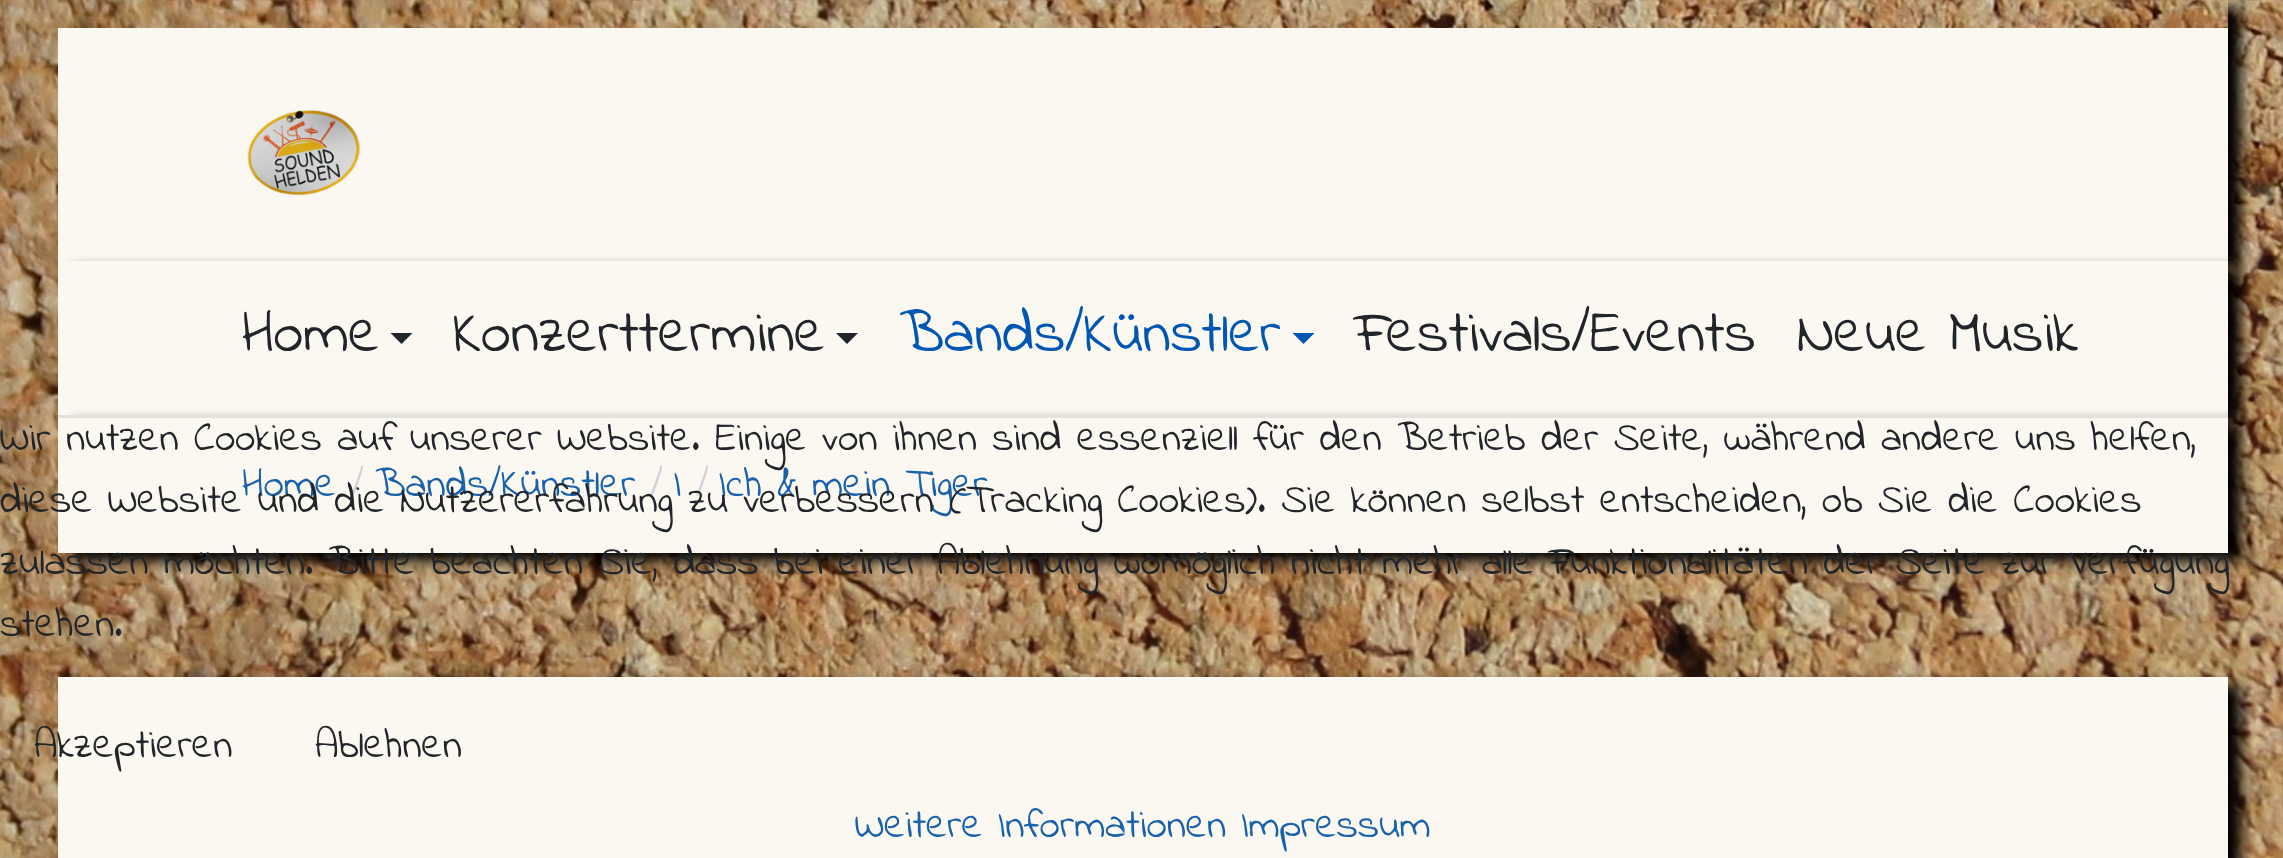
<svg xmlns="http://www.w3.org/2000/svg" width="2283" height="858" viewBox="0 0 2283 858">
  <style>
    .t1 { font: 60.5px Indie Flower; fill: #212529; }
    .t2 { font: 60.5px Indie Flower; fill: #0056b3; }
    .t3 { font: 41.25px Indie Flower; fill: #1a61ab; }
    .t4 { font: 41.25px Indie Flower; fill: #ced4da; }
    .t5 { font: 41.25px Indie Flower; fill: #212529; }
  </style>
  <defs>
    <clipPath id="clip1"><path d="M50 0H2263V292H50ZM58 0H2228V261H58Z" clip-rule="evenodd"/></clipPath>
  </defs>
  <rect width="100%" height="100%" fill="#fff"/>
  <image x="0" y="0" width="2283" height="858" href="images/1.png"/>
  <g clip-path="url(#clip1)">
    <rect x="72" y="8" width="2169" height="262" fill="#000" filter="blur(7px)"/>
  </g>
  <rect x="58" y="28" width="2170" height="233" fill="#faf8f0"/>
  <image x="247" y="110" width="113" height="86" href="images/2.png"/>
  <rect x="72" y="270" width="2169" height="154" fill="#000" filter="blur(7px)"/>
  <rect x="58" y="261" width="2170" height="154" fill="#faf8f0"/>
  <text x="242" y="351" class="t1">Home</text>
  <path d="M390.5 333H412.5L401.5 344Z" fill="#212529"/>
  <text x="453" y="351" class="t1">Konzerttermine</text>
  <path d="M836 333H858L847 344Z" fill="#212529"/>
  <text x="899" y="351" class="t2">Bands/Künstler</text>
  <path d="M1292.5 333H1314.5L1303.5 344Z" fill="#0056b3"/>
  <text x="1355" y="351" class="t1">Festivals/Events</text>
  <text x="1797" y="351" class="t1">Neue Musik</text>
  <rect x="72" y="424" width="2169" height="137" fill="#000" filter="blur(7px)"/>
  <rect x="58" y="418" width="2170" height="135" fill="#faf8f0"/>
  <rect x="58" y="415" width="2170" height="3" fill="#e2e1db"/>
  <text x="242" y="496" class="t3">Home</text>
  <text x="351" y="496" class="t4">/</text>
  <text x="375" y="496" class="t3">Bands/Künstler</text>
  <text x="650" y="496" class="t4">/</text>
  <text x="674" y="496" class="t3">I</text>
  <text x="696" y="496" class="t4">/</text>
  <text x="719" y="496" class="t3">Ich &amp; mein Tiger</text>
  <rect x="72" y="685" width="2169" height="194" fill="#000" filter="blur(7px)"/>
  <rect x="58" y="677" width="2170" height="181" fill="#faf8f0"/>
  <text x="0" y="450" class="t5">Wir nutzen Cookies auf unserer Website. Einige von ihnen sind essenziell für den Betrieb der Seite, während andere uns helfen,</text>
  <text x="0" y="512" class="t5">diese Website und die Nutzererfahrung zu verbessern (Tracking Cookies). Sie können selbst entscheiden, ob Sie die Cookies</text>
  <text x="0" y="574" class="t5">zulassen möchten. Bitte beachten Sie, dass bei einer Ablehnung womöglich nicht mehr alle Funktionalitäten der Seite zur Verfügung</text>
  <text x="0" y="636" class="t5">stehen.</text>
  <text x="34" y="757" class="t5">Akzeptieren</text>
  <text x="315" y="757" class="t5">Ablehnen</text>
  <text x="855" y="837" class="t3">Weitere Informationen Impressum</text>
</svg>
